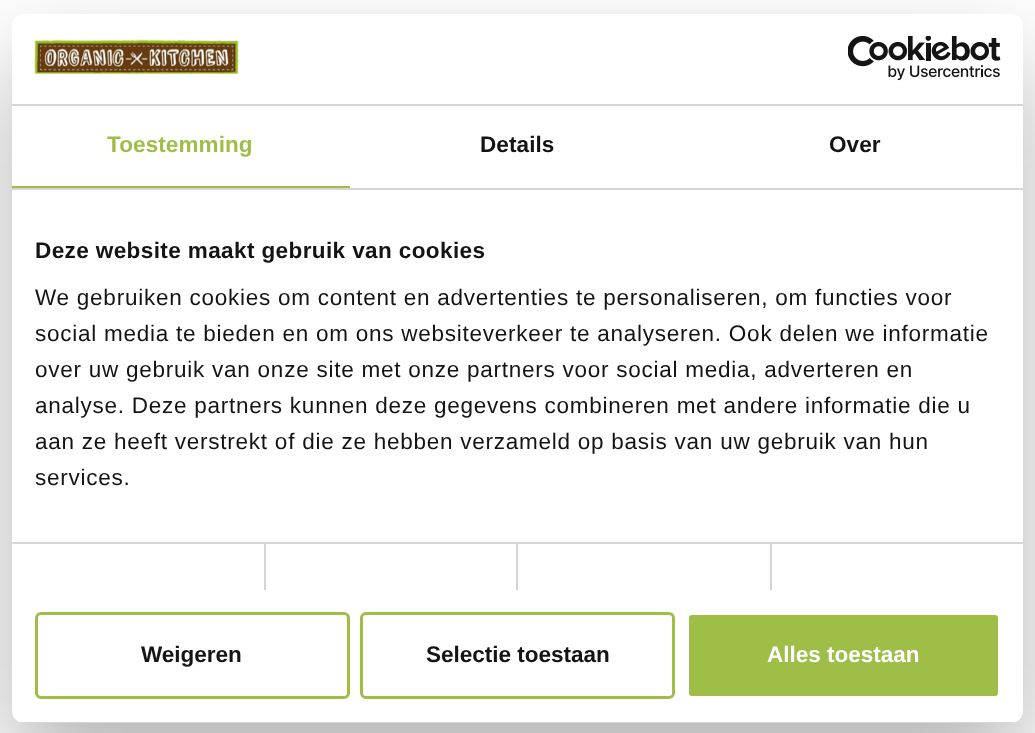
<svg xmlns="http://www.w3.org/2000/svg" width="1035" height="733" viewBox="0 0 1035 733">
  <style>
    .t1 { font: bold 22.5px Liberation Sans; letter-spacing: 0.1px; fill: #9fbe48; }
    .t2 { font: bold 22.5px Liberation Sans; letter-spacing: 0.1px; fill: #141414; }
    .t3 { font: bold 22.5px Liberation Sans; letter-spacing: 0.4px; fill: #141414; }
    .t4 { font: 22.5px Liberation Sans; letter-spacing: 0.75px; fill: #141414; }
    .t5 { font: bold 22.5px Liberation Sans; fill: #141414; }
    .t6 { font: bold 22.5px Liberation Sans; fill: #fff; }
  </style>
  <defs>
    <clipPath id="clip1"><rect x="12" y="14" width="1011" height="709" rx="12"/></clipPath>
  </defs>
  <rect width="100%" height="100%" fill="#fff"/>
  <rect x="12" y="62" width="1011" height="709" rx="12" fill="#0000004d" filter="blur(51px)"/>
  <rect x="12" y="14" width="1011" height="709" rx="12" fill="#fff"/>
  <rect x="12" y="104" width="1011" height="2" fill="#d6d6d6"/>
  <image x="34" y="39" width="205" height="36" href="images/1.png"/>
  <image x="848" y="36" width="153" height="45" href="images/2.png"/>
  <rect x="12" y="188" width="1011" height="2" fill="#d6d6d6"/>
  <rect x="12" y="186" width="338" height="2" fill="#9fbe48"/>
  <text x="107" y="152" class="t1">Toestemming</text>
  <text x="480" y="152" class="t2">Details</text>
  <text x="829" y="152" class="t2">Over</text>
  <rect x="264" y="543" width="2" height="47" fill="#d6d6d6"/>
  <rect x="516" y="543" width="2" height="47" fill="#d6d6d6"/>
  <rect x="770" y="543" width="2" height="47" fill="#d6d6d6"/>
  <rect x="12" y="542" width="1011" height="2" fill="#d6d6d6"/>
  <text x="35" y="258" class="t3">Deze website maakt gebruik van cookies</text>
  <text x="35" y="305" class="t4">We gebruiken cookies om content en advertenties te personaliseren, om functies voor</text>
  <text x="35" y="341" class="t4">social media te bieden en om ons websiteverkeer te analyseren. Ook delen we informatie</text>
  <text x="35" y="377" class="t4">over uw gebruik van onze site met onze partners voor social media, adverteren en</text>
  <text x="35" y="413" class="t4">analyse. Deze partners kunnen deze gegevens combineren met andere informatie die u</text>
  <text x="35" y="449" class="t4">aan ze heeft verstrekt of die ze hebben verzameld op basis van uw gebruik van hun</text>
  <text x="35" y="485" class="t4">services.</text>
  <rect x="12" y="542" width="1" height="2" fill="#e5e5e5"/>
  <g clip-path="url(#clip1)">
    <rect x="12" y="722" width="1011" height="1" fill="#d6d6d6"/>
  </g>
  <rect x="36.5" y="613.5" width="312" height="84" rx="4.5" fill="none" stroke="#9fbe48" stroke-width="3"/>
  <text x="141" y="662" class="t5">Weigeren</text>
  <rect x="361.5" y="613.5" width="312" height="84" rx="4.5" fill="none" stroke="#9fbe48" stroke-width="3"/>
  <text x="426" y="662" class="t5">Selectie toestaan</text>
  <rect x="687.5" y="613.5" width="312" height="84" rx="4.5" fill="#9fbe48" stroke="#fff" stroke-width="3"/>
  <text x="767" y="662" class="t6">Alles toestaan</text>
</svg>
